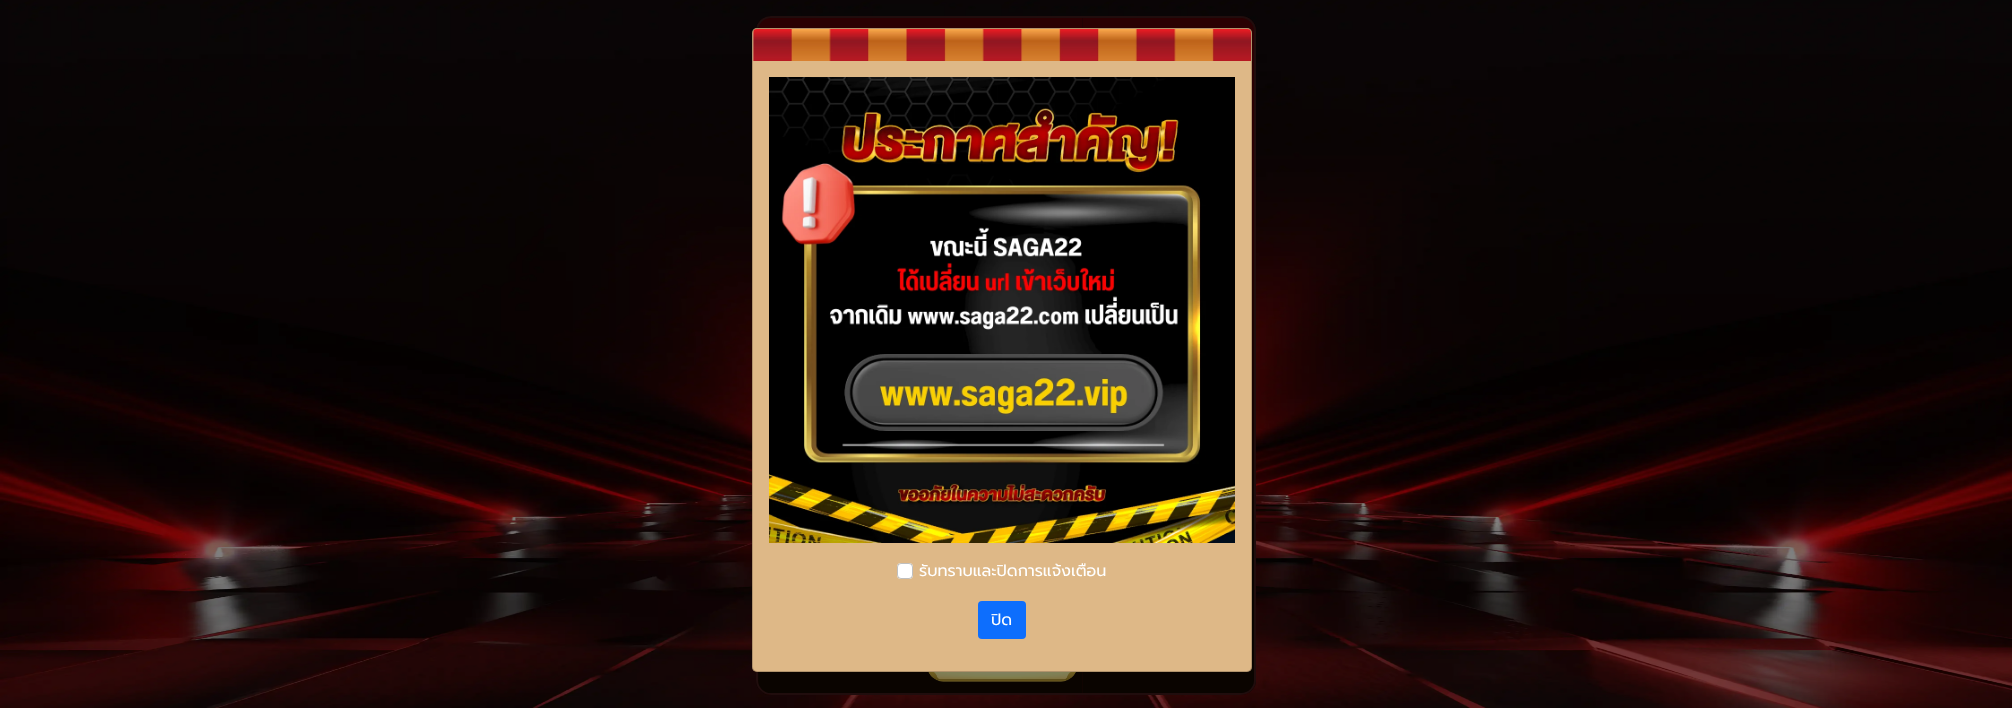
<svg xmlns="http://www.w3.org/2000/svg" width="2012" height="708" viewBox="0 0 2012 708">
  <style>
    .t1 { font: 16px Prompt; fill: #fff; }
  </style>
  <rect width="100%" height="100%" fill="#fff"/>
  <image x="0" y="0" width="2012" height="708" href="images/1.png"/>
  <image x="756" y="16" width="500" height="679" href="images/2.png"/>
  <rect x="757" y="17" width="498" height="677" rx="14" fill="none" stroke="#200d0d" stroke-width="2"/>
  <image x="928" y="672" width="148" height="10" href="images/3.png"/>
  <rect x="752" y="28" width="500" height="644" rx="5" fill="#deb887"/>
  <rect x="752.5" y="28.5" width="499" height="643" rx="4.5" fill="none" stroke="#00000033"/>
  <image x="753" y="29" width="498" height="32" href="images/4.png"/>
  <image x="769" y="77" width="466" height="466" href="images/5.png"/>
  <rect x="897" y="563" width="16" height="16" rx="4" fill="#fff"/>
  <rect x="897.5" y="563.5" width="15" height="15" rx="3.5" fill="none" stroke="#00000040"/>
  <text x="919" y="576" class="t1">รับทราบและปิดการแจ้งเตือน</text>
  <rect x="978" y="601" width="48" height="38" rx="4" fill="#0d6efd"/>
  <text x="991" y="625" class="t1">ปิด</text>
</svg>
